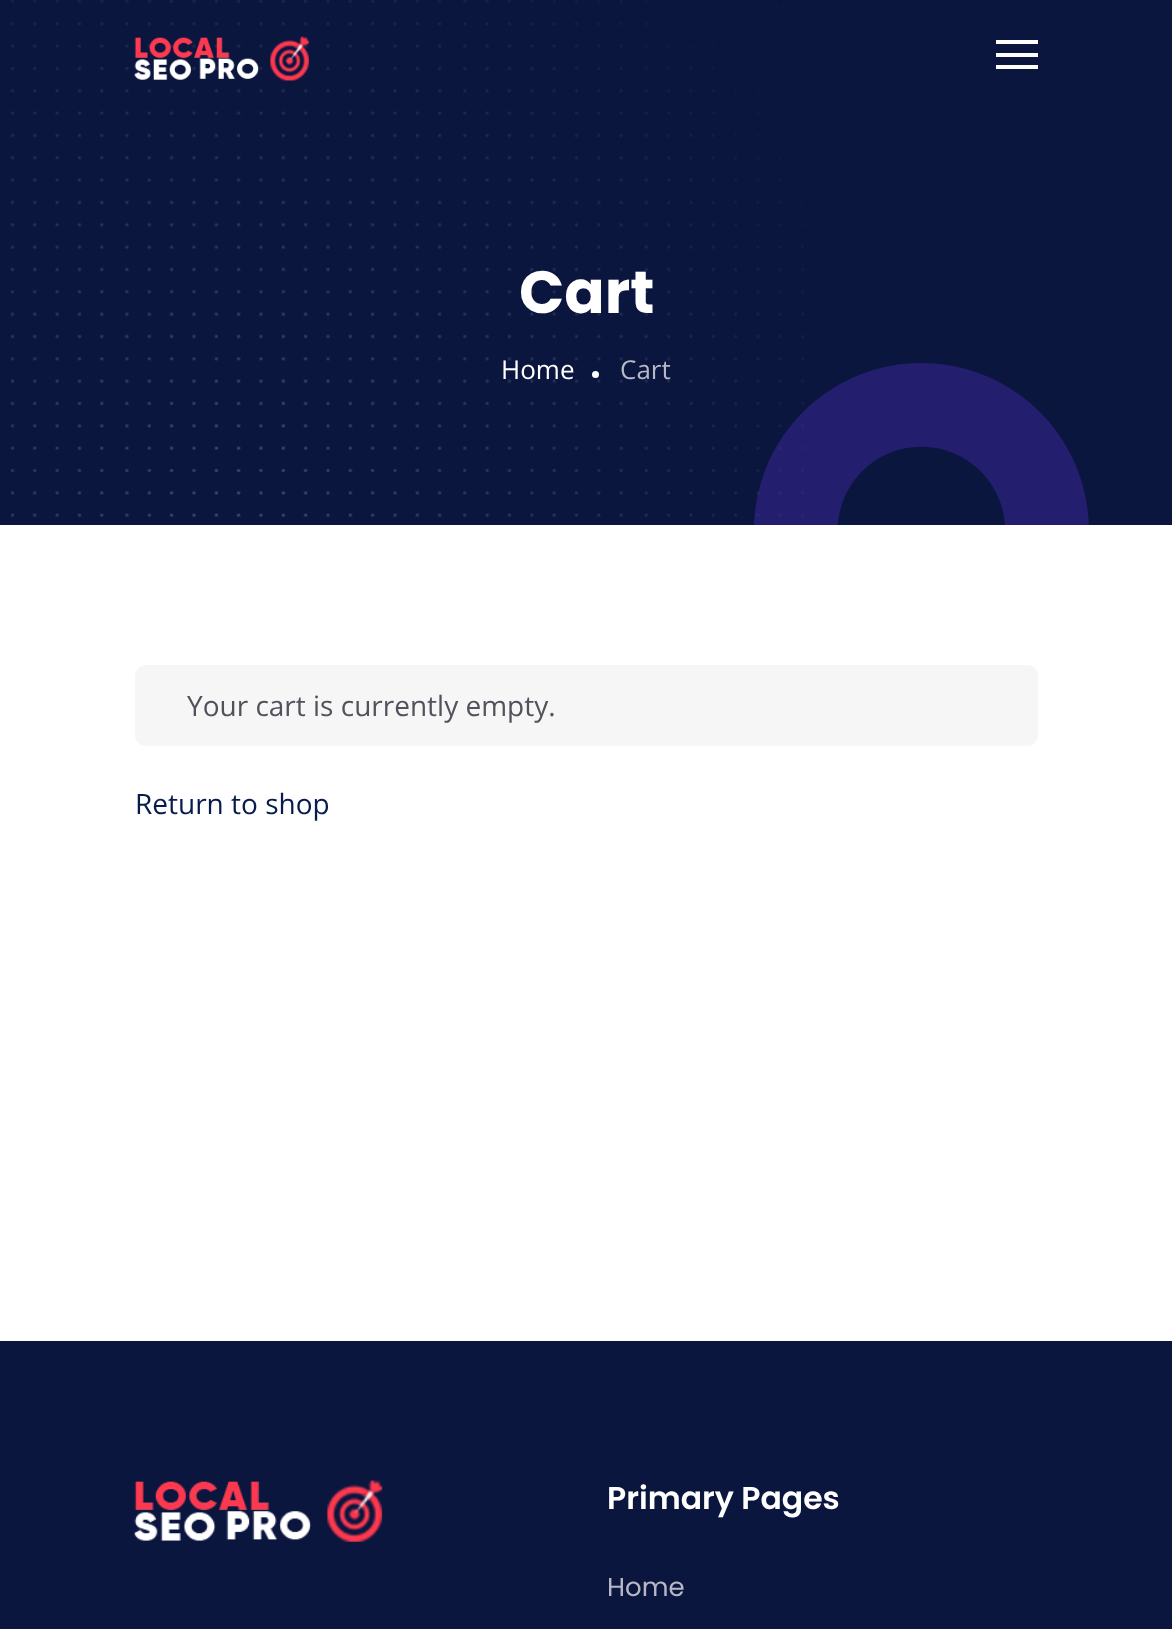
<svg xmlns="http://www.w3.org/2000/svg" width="1172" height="1629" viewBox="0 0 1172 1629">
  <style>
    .t1 { font: bold 59.5px Poppins; fill: #fff; }
    .t2 { font: 26px Open Sans; fill: #fff; }
    .t3 { font: 26px Open Sans; fill: #b6b9c5; }
    .t4 { font: 28px Open Sans; fill: #52525c; }
    .t5 { font: 28px Open Sans; fill: #071c4d; }
    .t6 { font: 600 31.5px Poppins; fill: #fff; }
    .t7 { font: 26px Poppins; fill: #b6b9c5; }
  </style>
  <rect width="100%" height="100%" fill="#fff"/>
  <rect x="0" y="0" width="1172" height="525" fill="#0b163f"/>
  <image x="10" y="0" width="1079" height="525" href="images/2.png"/>
  <image x="134" y="36" width="175" height="45" href="images/1.png"/>
  <rect x="996" y="40" width="42" height="4" fill="#fff"/>
  <rect x="996" y="53" width="42" height="4" fill="#fff"/>
  <rect x="996" y="65" width="42" height="4" fill="#fff"/>
  <text x="519" y="313" class="t1">Cart</text>
  <text x="501" y="379" class="t2">Home</text>
  <circle cx="595.5" cy="374.5" r="3.5" fill="#fff"/>
  <text x="620" y="379" class="t3">Cart</text>
  <rect x="135" y="665" width="903" height="81" rx="11" fill="#f6f6f7"/>
  <text x="187" y="716" class="t4">Your cart is currently empty.</text>
  <text x="135" y="814" class="t5">Return to shop</text>
  <rect x="0" y="1341" width="1172" height="288" fill="#0b163f"/>
  <image x="134" y="1480" width="249" height="62" href="images/3.png"/>
  <text x="607" y="1509" class="t6">Primary Pages</text>
  <text x="607" y="1596" class="t7">Home</text>
</svg>
